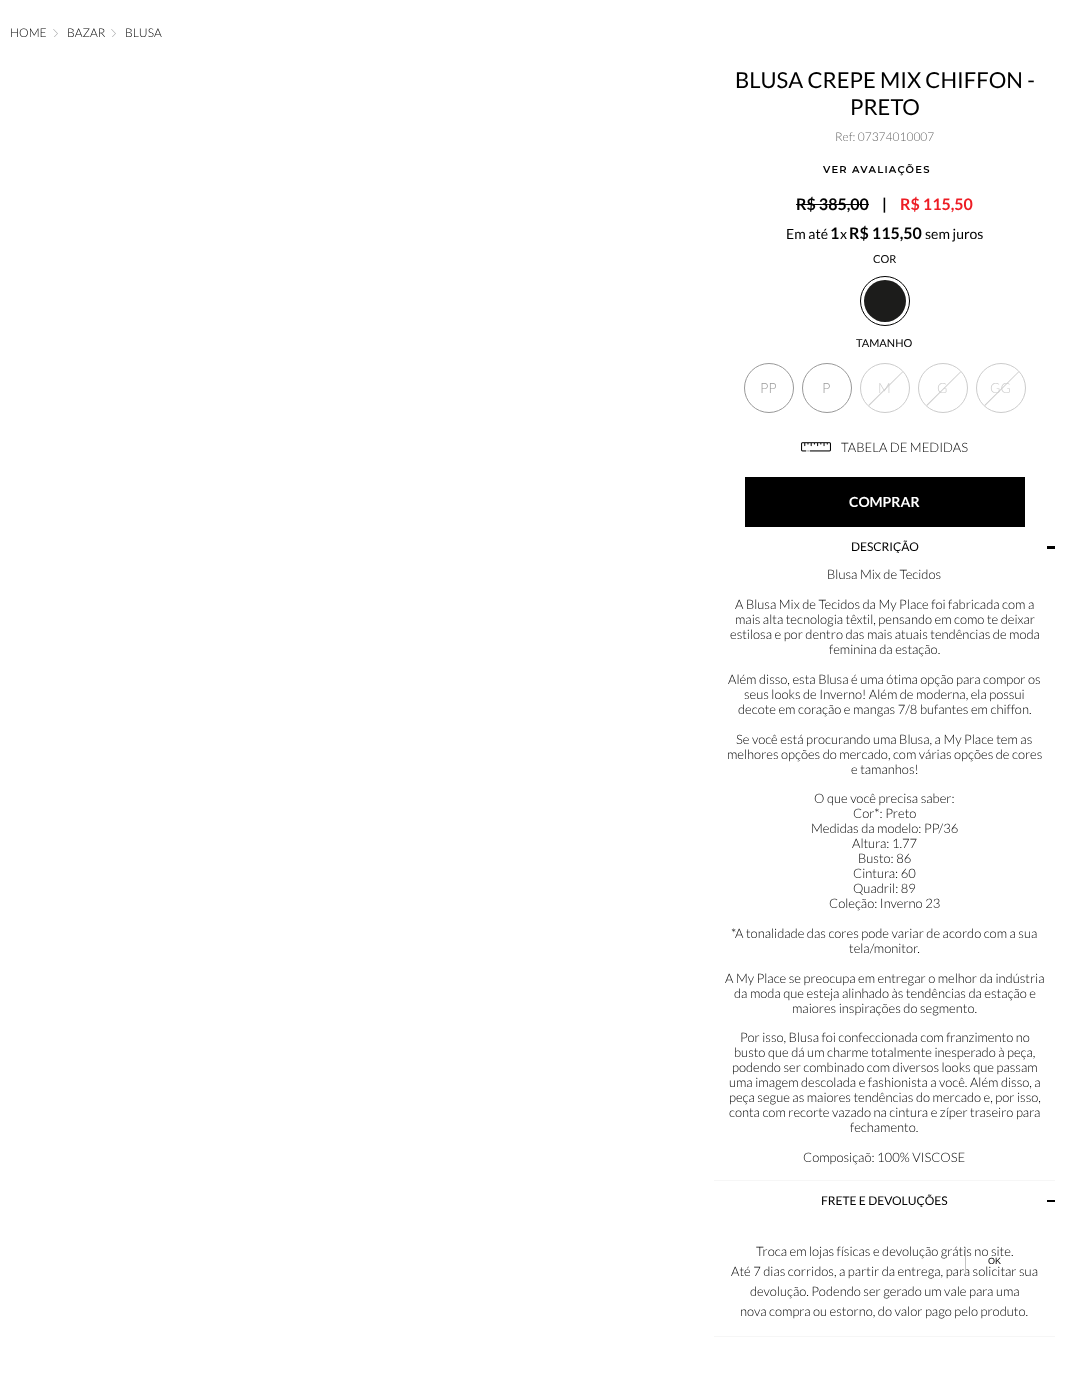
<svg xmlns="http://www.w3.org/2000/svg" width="1080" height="1382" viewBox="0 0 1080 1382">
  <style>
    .t1 { font: 300 12px Lato; fill: #000; }
    .t2 { font: 22px Lato; fill: #000; }
    .t3 { font: 300 12px Lato; fill: #656565; }
    .t4 { font: 600 10px Montserrat; letter-spacing: 1.25px; fill: #000; }
    .t5 { font: bold 16px Lato; fill: #000; }
    .t6 { font: bold 16px Lato; fill: #ed1c24; }
    .t7 { font: 14px Lato; fill: #000; }
    .t8 { font: 11px Lato; fill: #000; }
    .t9 { font: 300 14px Lato; fill: #999; }
    .t10 { font: 300 14px Lato; fill: #ccc; }
    .t11 { font: 300 13px Lato; fill: #000; }
    .t12 { font: bold 14px Lato; fill: #fff; }
    .t13 { font: 12px Lato; fill: #000; }
    .t14 { font: 9px Liberation Sans; fill: #000; }
  </style>
  <rect width="100%" height="100%" fill="#fff"/>
  <text x="10" y="37" class="t1">HOME</text>
  <image x="53" y="29" width="5" height="8" href="images/1.png"/>
  <text x="67" y="37" class="t1">BAZAR</text>
  <image x="111" y="29" width="5" height="8" href="images/1.png"/>
  <text x="125" y="37" class="t1">BLUSA</text>
  <text x="735" y="88" class="t2">BLUSA CREPE MIX CHIFFON -</text>
  <text x="850" y="115" class="t2">PRETO</text>
  <text x="835" y="141" class="t3">Ref: 07374010007</text>
  <text x="823" y="173" class="t4">VER AVALIAÇÕES</text>
  <text x="796" y="210" class="t5">R$ 385,00</text>
  <rect x="796" y="204" width="73" height="1" fill="#000"/>
  <text x="882" y="210" class="t5">|</text>
  <text x="900" y="210" class="t6">R$ 115,50</text>
  <text x="786" y="239" class="t7">Em até</text>
  <text x="830" y="239" class="t5">1</text>
  <text x="840" y="239" class="t7">x</text>
  <text x="849" y="239" class="t5">R$ 115,50</text>
  <text x="925" y="239" class="t7">sem juros</text>
  <text x="873" y="263" class="t8">COR</text>
  <circle cx="885" cy="301" r="24.5" fill="none" stroke="#000"/>
  <image x="864" y="280" width="42" height="42" href="images/2.png"/>
  <text x="856" y="347" class="t8">TAMANHO</text>
  <circle cx="769" cy="388" r="24.5" fill="none" stroke="#999"/>
  <text x="760" y="393" class="t9">PP</text>
  <circle cx="827" cy="388" r="24.5" fill="none" stroke="#999"/>
  <text x="822" y="393" class="t9">P</text>
  <circle cx="885" cy="388" r="24.5" fill="none" stroke="#ccc"/>
  <path d="M869 406L868.5 405L902.5 371.5L903 372Z" fill="#ccc"/>
  <text x="878" y="393" class="t10">M</text>
  <circle cx="943" cy="388" r="24.5" fill="none" stroke="#ccc"/>
  <path d="M927 406L926.5 405L960.5 371.5L961 372Z" fill="#ccc"/>
  <text x="937" y="393" class="t10">G</text>
  <circle cx="1001" cy="388" r="24.5" fill="none" stroke="#ccc"/>
  <path d="M985 406L984.5 405L1018.5 371.5L1019 372Z" fill="#ccc"/>
  <text x="990" y="393" class="t10">GG</text>
  <image x="801" y="442" width="30" height="10" href="images/3.png"/>
  <text x="841" y="452" class="t11">TABELA DE MEDIDAS</text>
  <rect x="745" y="477" width="280" height="50" fill="#000"/>
  <text x="849" y="507" class="t12">COMPRAR</text>
  <text x="851" y="551" class="t13">DESCRIÇÃO</text>
  <rect x="1047" y="546" width="8" height="3" fill="#000"/>
  <rect x="714" y="1180" width="341" height="1" fill="#f6f6f6"/>
  <text x="827" y="579" class="t11">Blusa Mix de Tecidos</text>
  <text x="735" y="609" class="t11">A Blusa Mix de Tecidos da My Place foi fabricada com a</text>
  <text x="735" y="624" class="t11">mais alta tecnologia têxtil, pensando em como te deixar</text>
  <text x="730" y="639" class="t11">estilosa e por dentro das mais atuais tendências de moda</text>
  <text x="829" y="654" class="t11">feminina da estação.</text>
  <text x="728" y="684" class="t11">Além disso, esta Blusa é uma ótima opção para compor os</text>
  <text x="744" y="699" class="t11">seus looks de Inverno! Além de moderna, ela possui</text>
  <text x="738" y="714" class="t11">decote em coração e mangas 7/8 bufantes em chiffon.</text>
  <text x="736" y="744" class="t11">Se você está procurando uma Blusa, a My Place tem as</text>
  <text x="727" y="759" class="t11">melhores opções do mercado, com várias opções de cores</text>
  <text x="851" y="774" class="t11">e tamanhos!</text>
  <text x="814" y="803" class="t11">O que você precisa saber:</text>
  <text x="853" y="818" class="t11">Cor*: Preto</text>
  <text x="811" y="833" class="t11">Medidas da modelo: PP/36</text>
  <text x="852" y="848" class="t11">Altura: 1.77</text>
  <text x="858" y="863" class="t11">Busto: 86</text>
  <text x="853" y="878" class="t11">Cintura: 60</text>
  <text x="853" y="893" class="t11">Quadril: 89</text>
  <text x="829" y="908" class="t11">Coleção: Inverno 23</text>
  <text x="731" y="938" class="t11">*A tonalidade das cores pode variar de acordo com a sua</text>
  <text x="849" y="953" class="t11">tela/monitor.</text>
  <text x="725" y="983" class="t11">A My Place se preocupa em entregar o melhor da indústria</text>
  <text x="734" y="998" class="t11">da moda que esteja alinhado às tendências da estação e</text>
  <text x="792" y="1013" class="t11">maiores inspirações do segmento.</text>
  <text x="740" y="1042" class="t11">Por isso, Blusa foi confeccionada com franzimento no</text>
  <text x="734" y="1057" class="t11">busto que dá um charme totalmente inesperado à peça,</text>
  <text x="732" y="1072" class="t11">podendo ser combinado com diversos looks que passam</text>
  <text x="729" y="1087" class="t11">uma imagem descolada e fashionista a você. Além disso, a</text>
  <text x="729" y="1102" class="t11">peça segue as maiores tendências do mercado e, por isso,</text>
  <text x="729" y="1117" class="t11">conta com recorte vazado na cintura e zíper traseiro para</text>
  <text x="850" y="1132" class="t11">fechamento.</text>
  <text x="803" y="1162" class="t11">Composiçaõ: 100% VISCOSE</text>
  <text x="821" y="1205" class="t13">FRETE E DEVOLUÇÕES</text>
  <rect x="1047" y="1200" width="8" height="2" fill="#000"/>
  <rect x="714" y="1336" width="341" height="1" fill="#f6f6f6"/>
  <text x="756" y="1256" class="t11">Troca em lojas físicas e devolução grátis no site.</text>
  <text x="731" y="1276" class="t11">Até 7 dias corridos, a partir da entrega, para solicitar sua</text>
  <text x="750" y="1296" class="t11">devolução. Podendo ser gerado um vale para uma</text>
  <text x="740" y="1316" class="t11">nova compra ou estorno, do valor pago pelo produto.</text>
  <rect x="965" y="1248" width="1" height="26" fill="#c3c3c3"/>
  <text x="988" y="1264" class="t14">OK</text>
</svg>
